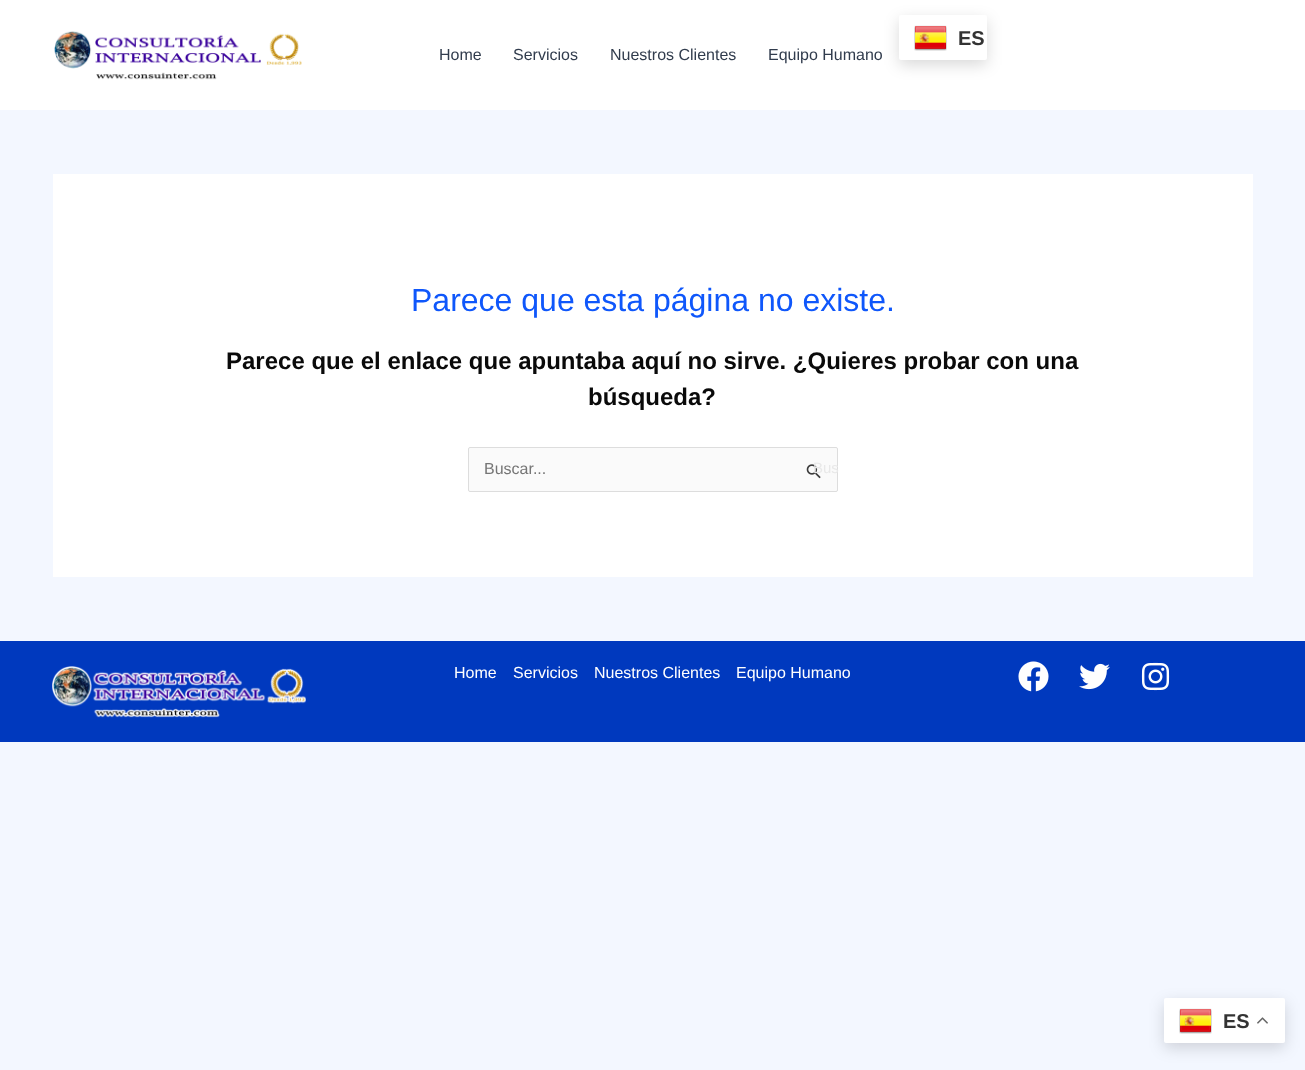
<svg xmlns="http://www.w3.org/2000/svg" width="1305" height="1070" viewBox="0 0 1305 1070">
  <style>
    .t1 { font: bold 20px Liberation Sans; fill: #333; }
    .t2 { font: 16px Liberation Sans; fill: #313c4d; }
    .t3 { font: 32px Liberation Sans; fill: #0f57fb; }
    .t4 { font: bold 24px Liberation Sans; fill: #0a0a0a; }
    .t5 { font: 16px Liberation Sans; fill: #757575; }
    .t6 { font: 15px Liberation Sans; fill: #e8e8e8; }
    .t7 { font: 16px Liberation Sans; fill: #fff; }
  </style>
  <rect width="100%" height="100%" fill="#f3f7ff"/>
  <rect x="0" y="0" width="1305" height="110" fill="#fff"/>
  <image x="54" y="31" width="248" height="49" href="images/1.png"/>
  <rect x="899" y="20" width="88" height="45" rx="2" fill="#00000026" filter="blur(7.5px)"/>
  <rect x="899" y="15" width="88" height="45" rx="2" fill="#fff"/>
  <image x="914" y="25" width="33" height="26" href="images/2.png"/>
  <text x="958" y="45" class="t1">ES</text>
  <text x="439" y="60" class="t2">Home</text>
  <text x="513" y="60" class="t2">Servicios</text>
  <text x="610" y="60" class="t2">Nuestros Clientes</text>
  <text x="768" y="60" class="t2">Equipo Humano</text>
  <rect x="53" y="174" width="1200" height="403" fill="#fff"/>
  <text x="411" y="311" class="t3">Parece que esta página no existe.</text>
  <text x="226" y="369" class="t4">Parece que el enlace que apuntaba aquí no sirve. ¿Quieres probar con una</text>
  <text x="588" y="405" class="t4">búsqueda?</text>
  <rect x="468.5" y="447.5" width="369" height="44" rx="1.5" fill="#fafafa" stroke="#ddd"/>
  <text x="484" y="474" class="t5">Buscar...</text>
  <image x="806" y="464" width="15" height="15" href="images/3.png"/>
  <text x="813" y="473" class="t6">Bus</text>
  <rect x="0" y="641" width="1305" height="101" fill="#0039be"/>
  <image x="52" y="666" width="254" height="52" href="images/4.png"/>
  <text x="454" y="678" class="t7">Home</text>
  <text x="513" y="678" class="t7">Servicios</text>
  <text x="594" y="678" class="t7">Nuestros Clientes</text>
  <text x="736" y="678" class="t7">Equipo Humano</text>
  <image x="1018" y="661" width="31" height="31" href="images/5.png"/>
  <image x="1079" y="663" width="31" height="27" href="images/6.png"/>
  <image x="1141" y="662" width="29" height="29" href="images/7.png"/>
  <rect x="1164" y="1003" width="121" height="45" rx="2" fill="#00000026" filter="blur(7.5px)"/>
  <rect x="1164" y="998" width="121" height="45" rx="2" fill="#fff"/>
  <image x="1179" y="1008" width="33" height="26" href="images/2.png"/>
  <text x="1223" y="1028" class="t1">ES</text>
  <image x="1257" y="1017" width="11" height="7" href="images/8.png"/>
</svg>
